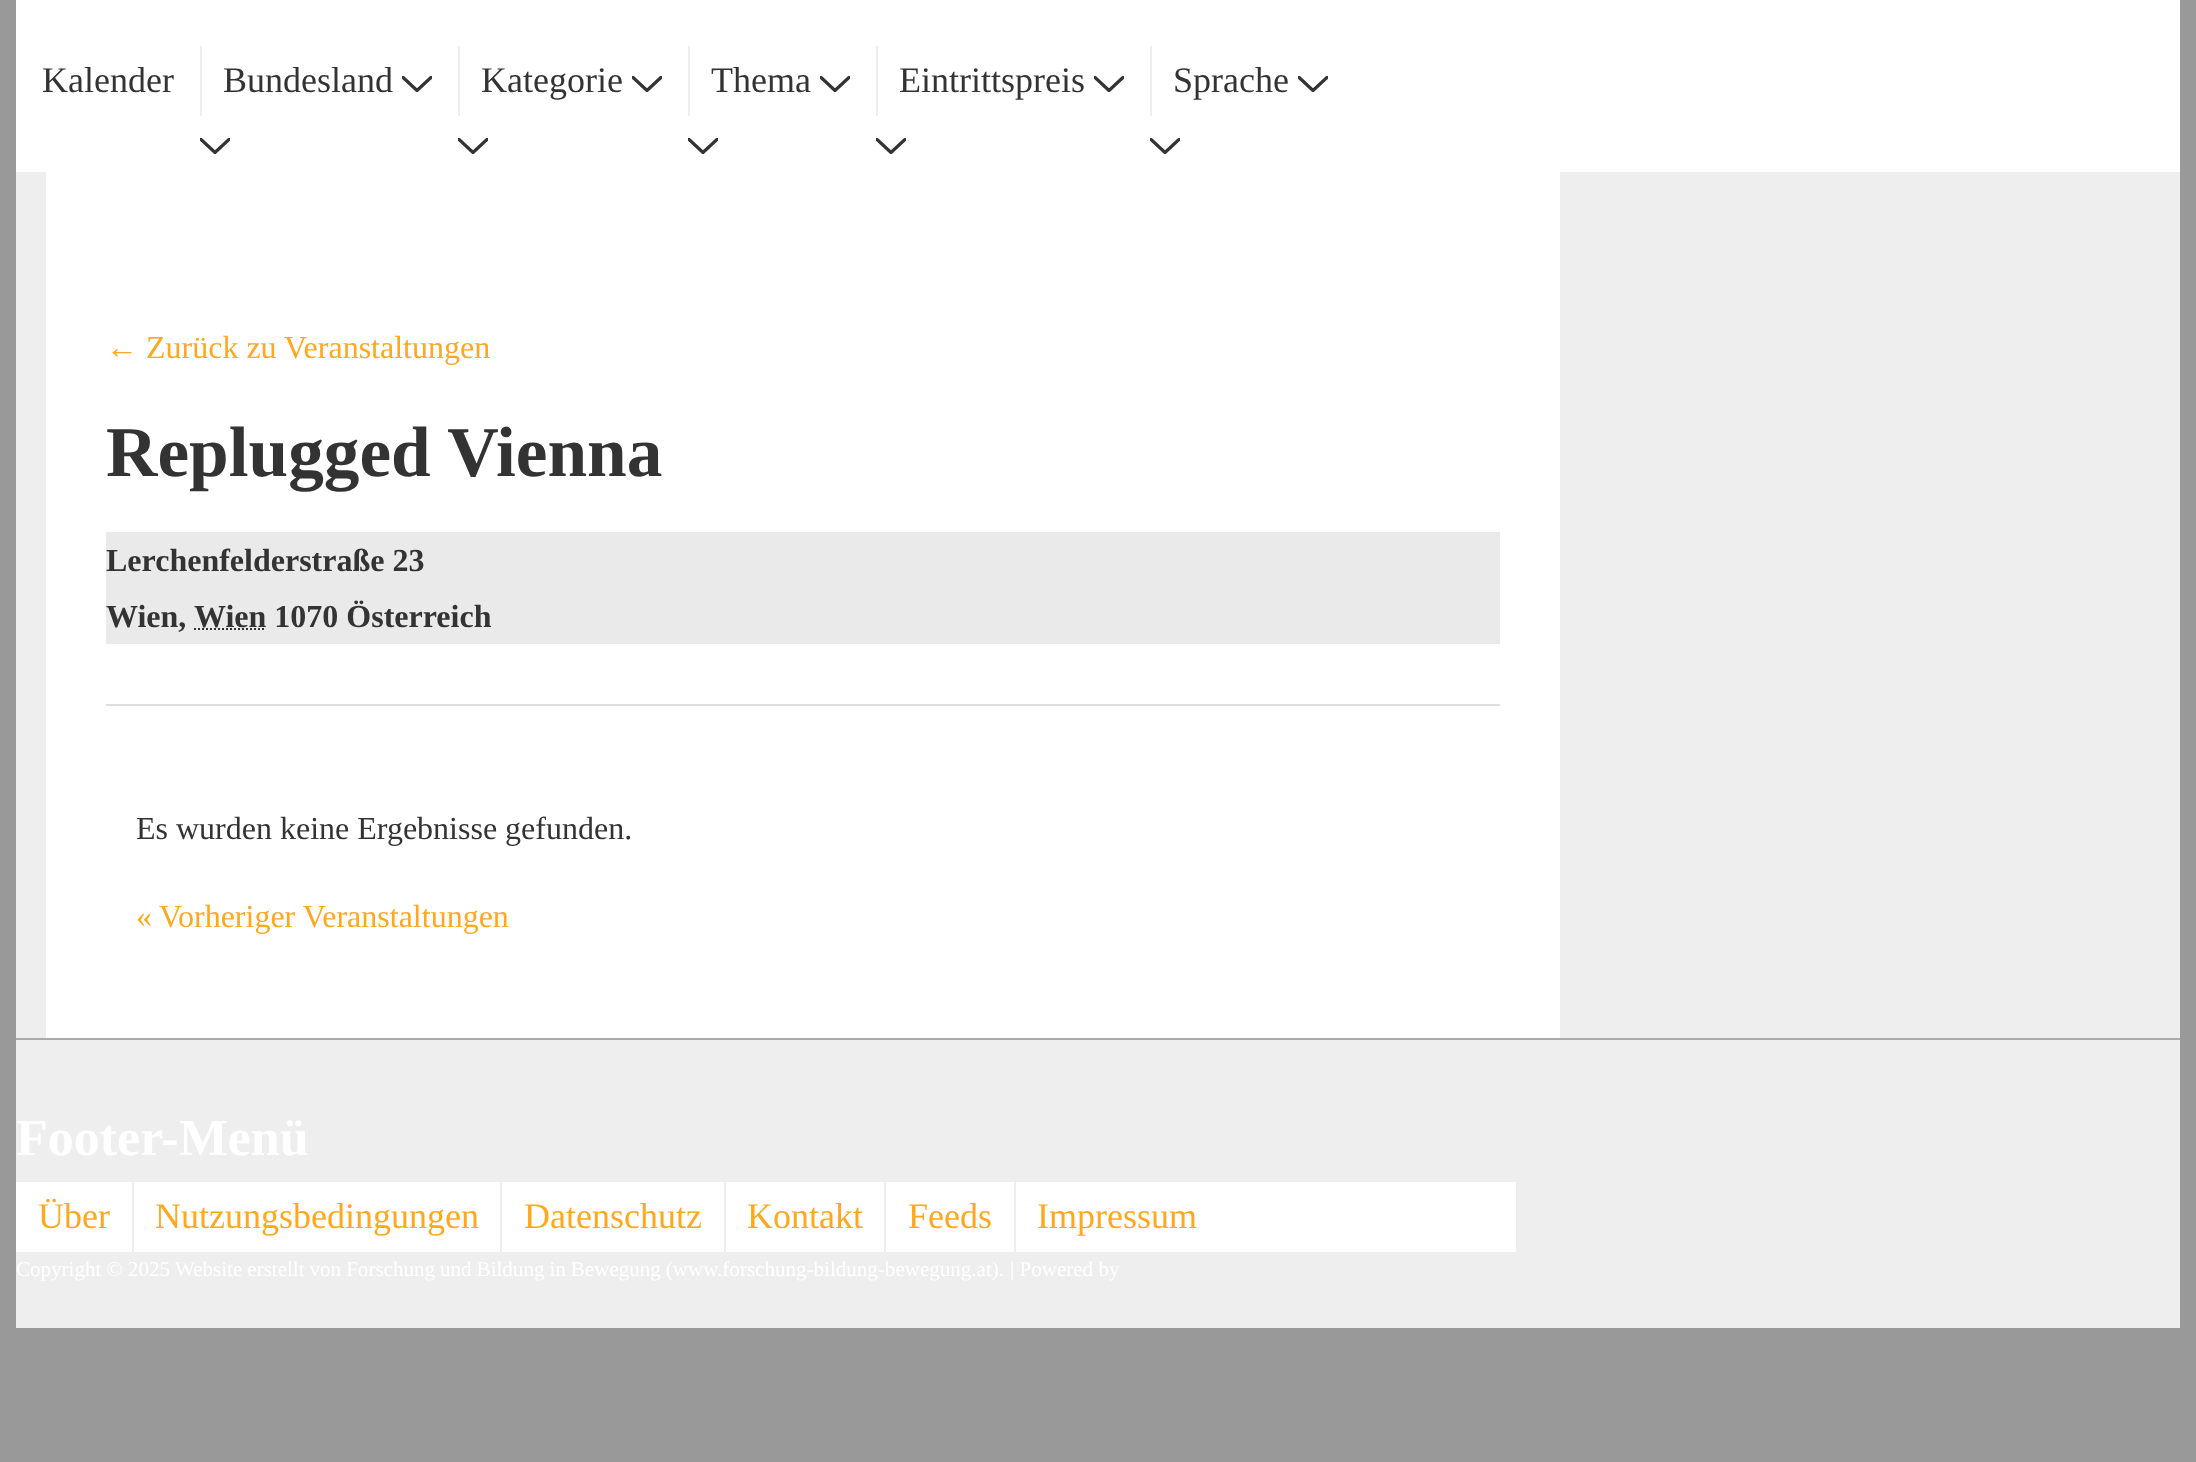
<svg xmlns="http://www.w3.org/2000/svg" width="2196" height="1462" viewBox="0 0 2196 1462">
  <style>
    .t1 { font: 36px Liberation Serif; fill: #333; }
    .t2 { font: 32px Liberation Serif; fill: #ffa71e; }
    .t3 { font: bold 71.25px Liberation Serif; fill: #333; }
    .t4 { font: bold 32px Liberation Serif; fill: #333; }
    .t5 { font: 32px Liberation Serif; fill: #333; }
    .t6 { font: bold 52px Liberation Serif; fill: #fff; }
    .t7 { font: 36px Liberation Serif; fill: #ffa71e; }
    .t8 { font: 21.05px Liberation Serif; fill: #fff; }
  </style>
  <defs>
    <clipPath id="clip1"><rect x="402" y="76" width="30" height="16"/></clipPath>
    <clipPath id="clip2"><rect x="200" y="138" width="30" height="16"/></clipPath>
    <clipPath id="clip3"><rect x="632" y="76" width="30" height="16"/></clipPath>
    <clipPath id="clip4"><rect x="458" y="138" width="30" height="16"/></clipPath>
    <clipPath id="clip5"><rect x="820" y="76" width="30" height="16"/></clipPath>
    <clipPath id="clip6"><rect x="688" y="138" width="30" height="16"/></clipPath>
    <clipPath id="clip7"><rect x="1094" y="76" width="30" height="16"/></clipPath>
    <clipPath id="clip8"><rect x="876" y="138" width="30" height="16"/></clipPath>
    <clipPath id="clip9"><rect x="1298" y="76" width="30" height="16"/></clipPath>
    <clipPath id="clip10"><rect x="1150" y="138" width="30" height="16"/></clipPath>
  </defs>
  <rect width="100%" height="100%" fill="#999"/>
  <rect x="16" y="0" width="2164" height="172" fill="#fff"/>
  <text x="42" y="92" class="t1">Kalender</text>
  <rect x="200" y="46" width="2" height="70" fill="#eee"/>
  <text x="223" y="92" class="t1">Bundesland</text>
  <g clip-path="url(#clip1)">
    <path d="M403 77.5L417 90.5L431 77.5" fill="none" stroke="#333" stroke-width="3.3" stroke-linecap="round"/>
  </g>
  <g clip-path="url(#clip2)">
    <path d="M201 139.5L215 152.5L229 139.5" fill="none" stroke="#333" stroke-width="3.3" stroke-linecap="round"/>
  </g>
  <rect x="458" y="46" width="2" height="70" fill="#eee"/>
  <text x="481" y="92" class="t1">Kategorie</text>
  <g clip-path="url(#clip3)">
    <path d="M633 77.5L647 90.5L661 77.5" fill="none" stroke="#333" stroke-width="3.3" stroke-linecap="round"/>
  </g>
  <g clip-path="url(#clip4)">
    <path d="M459 139.5L473 152.5L487 139.5" fill="none" stroke="#333" stroke-width="3.3" stroke-linecap="round"/>
  </g>
  <rect x="688" y="46" width="2" height="70" fill="#eee"/>
  <text x="711" y="92" class="t1">Thema</text>
  <g clip-path="url(#clip5)">
    <path d="M821 77.5L835 90.5L849 77.5" fill="none" stroke="#333" stroke-width="3.3" stroke-linecap="round"/>
  </g>
  <g clip-path="url(#clip6)">
    <path d="M689 139.5L703 152.5L717 139.5" fill="none" stroke="#333" stroke-width="3.3" stroke-linecap="round"/>
  </g>
  <rect x="876" y="46" width="2" height="70" fill="#eee"/>
  <text x="899" y="92" class="t1">Eintrittspreis</text>
  <g clip-path="url(#clip7)">
    <path d="M1095 77.5L1109 90.5L1123 77.5" fill="none" stroke="#333" stroke-width="3.3" stroke-linecap="round"/>
  </g>
  <g clip-path="url(#clip8)">
    <path d="M877 139.5L891 152.5L905 139.5" fill="none" stroke="#333" stroke-width="3.3" stroke-linecap="round"/>
  </g>
  <rect x="1150" y="46" width="2" height="70" fill="#eee"/>
  <text x="1173" y="92" class="t1">Sprache</text>
  <g clip-path="url(#clip9)">
    <path d="M1299 77.5L1313 90.5L1327 77.5" fill="none" stroke="#333" stroke-width="3.3" stroke-linecap="round"/>
  </g>
  <g clip-path="url(#clip10)">
    <path d="M1151 139.5L1165 152.5L1179 139.5" fill="none" stroke="#333" stroke-width="3.3" stroke-linecap="round"/>
  </g>
  <rect x="16" y="172" width="2164" height="866" fill="#eee"/>
  <rect x="46" y="172" width="1514" height="866" fill="#fff"/>
  <text x="106" y="358" class="t2">← Zurück zu Veranstaltungen</text>
  <rect x="106" y="704" width="1394" height="2" fill="#ddd"/>
  <text x="106" y="476" class="t3">Replugged Vienna</text>
  <rect x="106" y="532" width="1394" height="112" fill="#eaeaea"/>
  <text x="106" y="571" class="t4">Lerchenfelderstraße 23</text>
  <text x="106" y="627" class="t4">Wien,</text>
  <path d="M194 629H266" fill="none" stroke="#333" stroke-width="2" stroke-dasharray="2 2"/>
  <text x="194" y="627" class="t4">Wien 1070 Österreich</text>
  <text x="136" y="839" class="t5">Es wurden keine Ergebnisse gefunden.</text>
  <text x="136" y="927" class="t2">«</text>
  <text x="159" y="927" class="t2">Vorheriger Veranstaltungen</text>
  <rect x="16" y="1040" width="2164" height="288" fill="#eee"/>
  <rect x="16" y="1038" width="2164" height="2" fill="#aaa"/>
  <text x="16" y="1155" class="t6">Footer-Menü</text>
  <rect x="16" y="1182" width="1500" height="70" fill="#fff"/>
  <text x="38" y="1228" class="t7">Über</text>
  <rect x="132" y="1182" width="2" height="70" fill="#eee"/>
  <text x="155" y="1228" class="t7">Nutzungsbedingungen</text>
  <rect x="500" y="1182" width="2" height="70" fill="#eee"/>
  <text x="524" y="1228" class="t7">Datenschutz</text>
  <rect x="724" y="1182" width="2" height="70" fill="#eee"/>
  <text x="747" y="1228" class="t7">Kontakt</text>
  <rect x="884" y="1182" width="2" height="70" fill="#eee"/>
  <text x="908" y="1228" class="t7">Feeds</text>
  <rect x="1014" y="1182" width="2" height="70" fill="#eee"/>
  <text x="1037" y="1228" class="t7">Impressum</text>
  <text x="16" y="1276" class="t8">Copyright © 2025</text>
  <text x="175" y="1276" word-spacing="-0.25" class="t8">Website erstellt von Forschung und Bildung in Bewegung (www.forschung-bildung-bewegung.at).</text>
  <text x="1010" y="1276" class="t8">| Powered by</text>
</svg>
